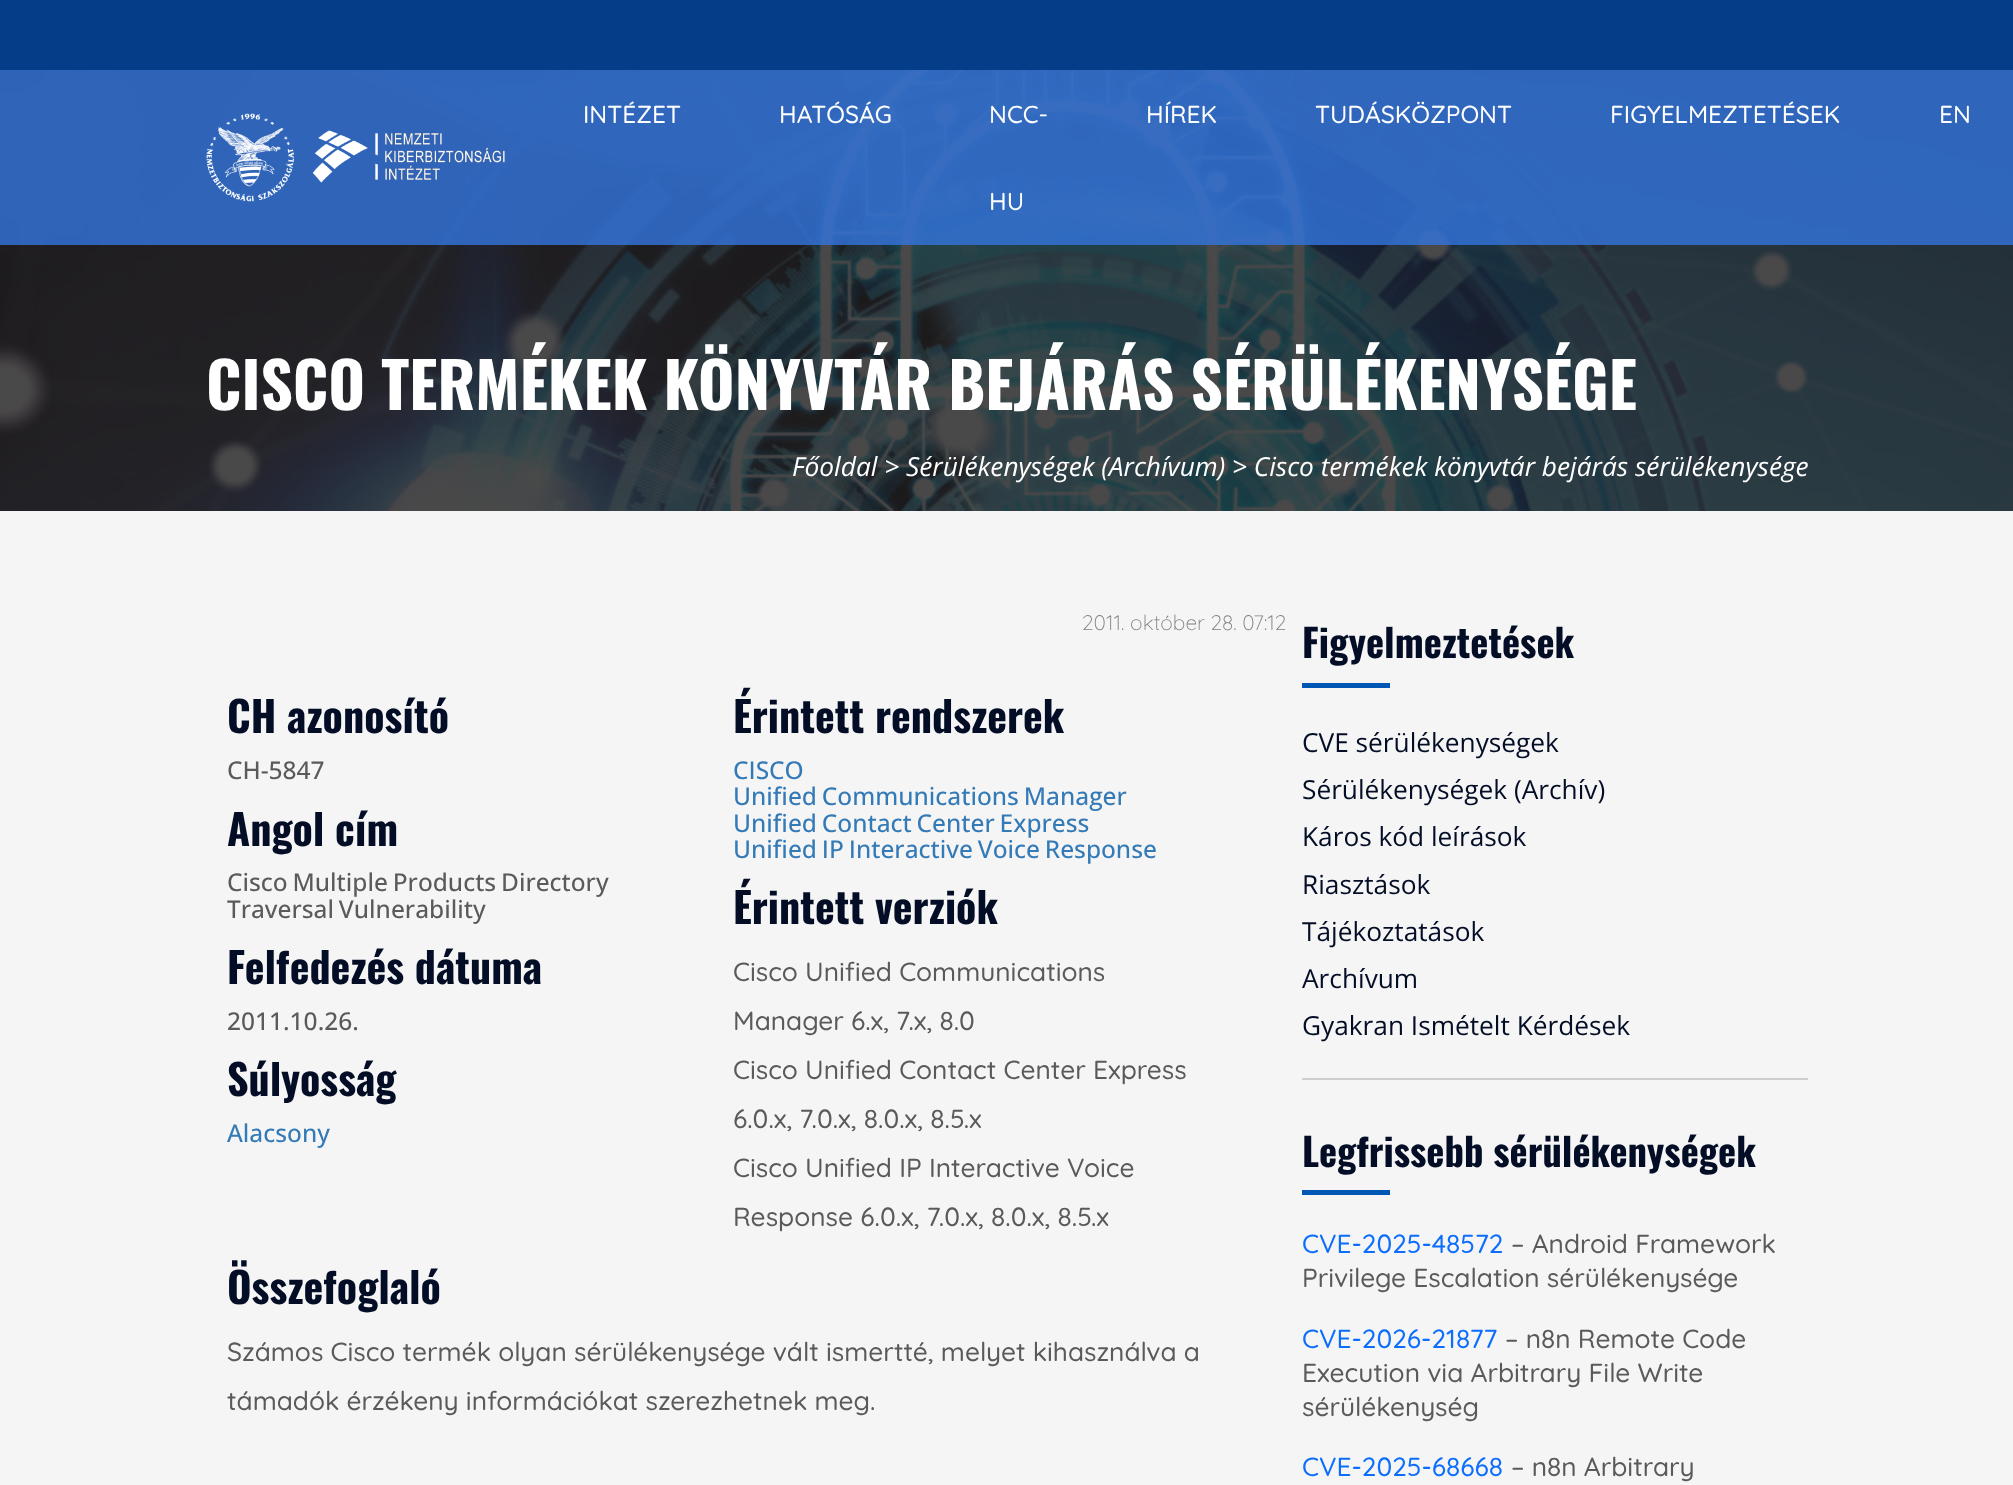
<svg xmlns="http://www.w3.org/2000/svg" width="2013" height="1485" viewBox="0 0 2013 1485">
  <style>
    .t1 { font: 500 24.5px Quicksand; fill: #fff; }
    .t2 { font: bold 63px Oswald; fill: #fff; }
    .t3 { font: italic 26.25px Open Sans; fill: #fff; }
    .t4 { font: 300 21px Quicksand; fill: #808080; }
    .t5 { font: bold 42px Oswald; fill: #030d26; }
    .t6 { font: 500 24.5px Open Sans; fill: #5a5a5a; }
    .t7 { font: 500 24.5px Open Sans; fill: #337ab7; }
    .t8 { font: 500 26.25px Quicksand; fill: #5a5a5a; }
    .t9 { font: bold 38.5px Oswald; fill: #030d26; }
    .t10 { font: 26.25px Open Sans; fill: #030d26; }
    .t11 { font: 500 26.25px Quicksand; fill: #0d6efd; }
  </style>
  <rect width="100%" height="100%" fill="#fff"/>
  <rect x="0" y="0" width="2013" height="70" fill="#063d88"/>
  <image x="0" y="70" width="2013" height="441" href="images/2.png"/>
  <rect x="0" y="70" width="2013" height="175" fill="#3376decc"/>
  <image x="206" y="113" width="299" height="89" href="images/1.png"/>
  <text x="583" y="123" class="t1">INTÉZET</text>
  <text x="779" y="123" class="t1">HATÓSÁG</text>
  <text x="989" y="123" class="t1">NCC-</text>
  <text x="989" y="210" class="t1">HU</text>
  <text x="1146" y="123" class="t1">HÍREK</text>
  <text x="1315" y="123" class="t1">TUDÁSKÖZPONT</text>
  <text x="1610" y="123" class="t1">FIGYELMEZTETÉSEK</text>
  <text x="1939" y="123" class="t1">EN</text>
  <text x="206" y="410" class="t2">CISCO TERMÉKEK KÖNYVTÁR BEJÁRÁS SÉRÜLÉKENYSÉGE</text>
  <text x="792" y="476" class="t3">Főoldal &gt; Sérülékenységek (Archívum) &gt; Cisco termékek könyvtár bejárás sérülékenysége</text>
  <rect x="0" y="511" width="2013" height="974" fill="#f5f5f5"/>
  <text x="1082" y="630" class="t4">2011. október 28. 07:12</text>
  <text x="227" y="733" class="t5">CH azonosító</text>
  <text x="227" y="779" class="t6">CH-5847</text>
  <text x="227" y="846" class="t5">Angol cím</text>
  <text x="227" y="891" word-spacing="-1.5" class="t6">Cisco Multiple Products Directory</text>
  <text x="227" y="918" word-spacing="-1.5" class="t6">Traversal Vulnerability</text>
  <text x="227" y="984" class="t5">Felfedezés dátuma</text>
  <text x="227" y="1030" class="t6">2011.10.26.</text>
  <text x="227" y="1096" class="t5">Súlyosság</text>
  <text x="227" y="1142" class="t7">Alacsony</text>
  <text x="733" y="733" class="t5">Érintett rendszerek</text>
  <text x="733" y="779" class="t7">CISCO</text>
  <text x="733" y="805" word-spacing="-1.5" class="t7">Unified Communications Manager</text>
  <text x="733" y="832" word-spacing="-1.5" class="t7">Unified Contact Center Express</text>
  <text x="733" y="858" word-spacing="-1.5" class="t7">Unified IP Interactive Voice Response</text>
  <text x="733" y="924" class="t5">Érintett verziók</text>
  <text x="733" y="981" class="t8">Cisco Unified Communications</text>
  <text x="733" y="1030" class="t8">Manager 6.x, 7.x, 8.0</text>
  <text x="733" y="1079" class="t8">Cisco Unified Contact Center Express</text>
  <text x="733" y="1128" class="t8">6.0.x, 7.0.x, 8.0.x, 8.5.x</text>
  <text x="733" y="1177" class="t8">Cisco Unified IP Interactive Voice</text>
  <text x="733" y="1226" class="t8">Response 6.0.x, 7.0.x, 8.0.x, 8.5.x</text>
  <text x="227" y="1304" class="t5">Összefoglaló</text>
  <text x="227" y="1361" class="t8">Számos Cisco termék olyan sérülékenysége vált ismertté, melyet kihasználva a</text>
  <text x="227" y="1410" class="t8">támadók érzékeny információkat szerezhetnek meg.</text>
  <text x="1302" y="658" class="t9">Figyelmeztetések</text>
  <rect x="1302" y="683" width="88" height="5" fill="#0056b3"/>
  <text x="1302" y="752" class="t10">CVE sérülékenységek</text>
  <text x="1302" y="799" class="t10">Sérülékenységek (Archív)</text>
  <text x="1302" y="846" class="t10">Káros kód leírások</text>
  <text x="1302" y="894" class="t10">Riasztások</text>
  <text x="1302" y="941" class="t10">Tájékoztatások</text>
  <text x="1302" y="988" class="t10">Archívum</text>
  <text x="1302" y="1035" class="t10">Gyakran Ismételt Kérdések</text>
  <rect x="1302" y="1078" width="506" height="2" fill="#cecece"/>
  <text x="1302" y="1167" class="t9">Legfrissebb sérülékenységek</text>
  <rect x="1302" y="1190" width="88" height="5" fill="#0056b3"/>
  <text x="1302" y="1253" class="t11">CVE-2025-48572</text>
  <text x="1511" y="1253" class="t8">– Android Framework</text>
  <text x="1302" y="1287" class="t8">Privilege Escalation sérülékenysége</text>
  <text x="1302" y="1348" class="t11">CVE-2026-21877</text>
  <text x="1505" y="1348" class="t8">– n8n Remote Code</text>
  <text x="1302" y="1382" class="t8">Execution via Arbitrary File Write</text>
  <text x="1302" y="1416" class="t8">sérülékenység</text>
  <text x="1302" y="1476" class="t11">CVE-2025-68668</text>
  <text x="1511" y="1476" class="t8">– n8n Arbitrary</text>
</svg>
